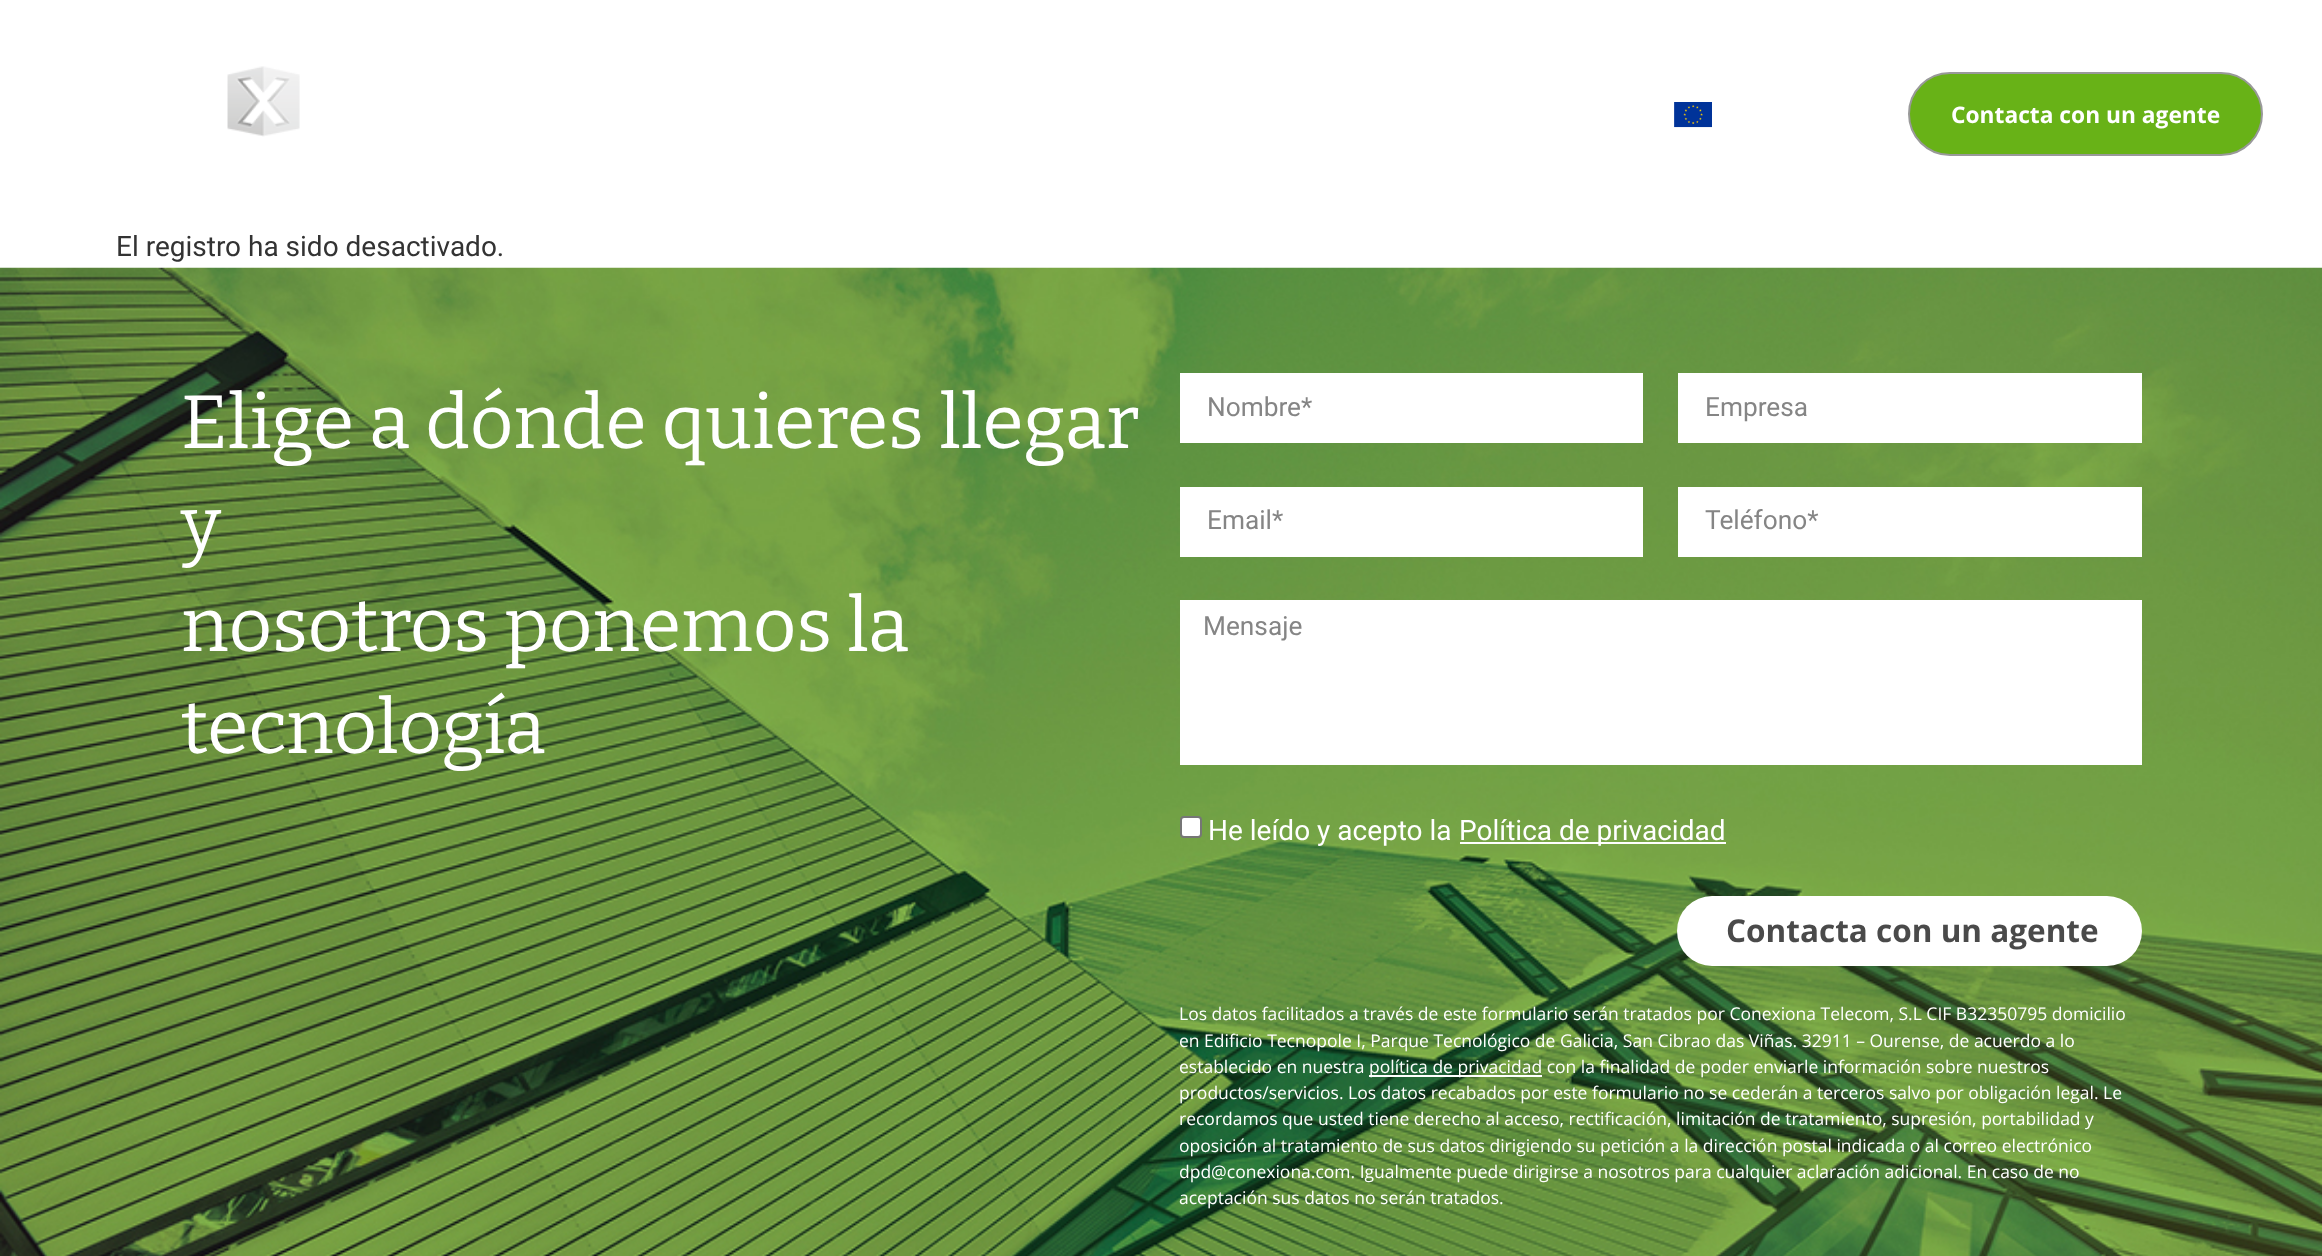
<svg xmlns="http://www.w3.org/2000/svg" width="2322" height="1256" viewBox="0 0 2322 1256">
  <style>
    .t1 { font: bold 22.75px Open Sans; fill: #fff; }
    .t2 { font: 28px Roboto; fill: #333; }
    .t3 { font: 75.25px Bitter; fill: #fff; }
    .t4 { font: 26.25px Roboto; fill: #858585; }
    .t5 { font: 28px Roboto; fill: #fff; }
    .t6 { font: bold 31.5px Open Sans; fill: #4a4a4a; }
    .t7 { font: 17.5px Open Sans; fill: #fff; }
  </style>
  <rect width="100%" height="100%" fill="#fff"/>
  <image x="227" y="66" width="73" height="71" href="images/1.png"/>
  <image x="1674" y="102" width="38" height="26" href="images/2.png"/>
  <rect x="1909" y="73" width="353" height="82" rx="41" fill="#68b217" stroke="#999" stroke-width="2"/>
  <text x="1951" y="123" class="t1">Contacta con un agente</text>
  <text x="116" y="256" class="t2">El registro ha sido desactivado.</text>
  <image x="0" y="267" width="2322" height="989" href="images/3.png"/>
  <text x="181" y="448" class="t3">Elige a dónde quieres llegar</text>
  <text x="181" y="550" class="t3">y</text>
  <text x="181" y="651" class="t3">nosotros ponemos la</text>
  <text x="181" y="753" class="t3">tecnología</text>
  <rect x="1180" y="373" width="463" height="70" fill="#fff"/>
  <text x="1207" y="416" class="t4">Nombre*</text>
  <rect x="1678" y="373" width="464" height="70" fill="#fff"/>
  <text x="1705" y="416" class="t4">Empresa</text>
  <rect x="1180" y="487" width="463" height="70" fill="#fff"/>
  <text x="1207" y="529" class="t4">Email*</text>
  <rect x="1678" y="487" width="464" height="70" fill="#fff"/>
  <text x="1705" y="529" class="t4">Teléfono*</text>
  <rect x="1180" y="600" width="962" height="165" fill="#fff"/>
  <text x="1203" y="635" class="t4">Mensaje</text>
  <rect x="1181" y="817" width="20" height="20" rx="3" fill="#fff" stroke="#767676" stroke-width="2"/>
  <text x="1208" y="840" class="t5">He leído y acepto la</text>
  <rect x="1460" y="842" width="266" height="2" fill="#fff"/>
  <text x="1459" y="840" class="t5">Política de privacidad</text>
  <rect x="1677" y="896" width="465" height="70" rx="35" fill="#fff"/>
  <text x="1726" y="942" class="t6">Contacta con un agente</text>
  <text x="1179" y="1020" class="t7">Los datos facilitados a través de este formulario serán tratados por Conexiona Telecom, S.L CIF B32350795 domicilio</text>
  <text x="1179" y="1047" class="t7">en Edificio Tecnopole I, Parque Tecnológico de Galicia, San Cibrao das Viñas. 32911 – Ourense, de acuerdo a lo</text>
  <text x="1179" y="1073" class="t7">establecido en nuestra</text>
  <rect x="1369" y="1075" width="173" height="2" fill="#fff"/>
  <text x="1369" y="1073" class="t7">política de privacidad con la finalidad de poder enviarle información sobre nuestros</text>
  <text x="1179" y="1099" class="t7">productos/servicios. Los datos recabados por este formulario no se cederán a terceros salvo por obligación legal. Le</text>
  <text x="1179" y="1125" class="t7">recordamos que usted tiene derecho al acceso, rectificación, limitación de tratamiento, supresión, portabilidad y</text>
  <text x="1179" y="1152" class="t7">oposición al tratamiento de sus datos dirigiendo su petición a la dirección postal indicada o al correo electrónico</text>
  <text x="1179" y="1178" class="t7">dpd@conexiona.com. Igualmente puede dirigirse a nosotros para cualquier aclaración adicional. En caso de no</text>
  <text x="1179" y="1204" class="t7">aceptación sus datos no serán tratados.</text>
</svg>
